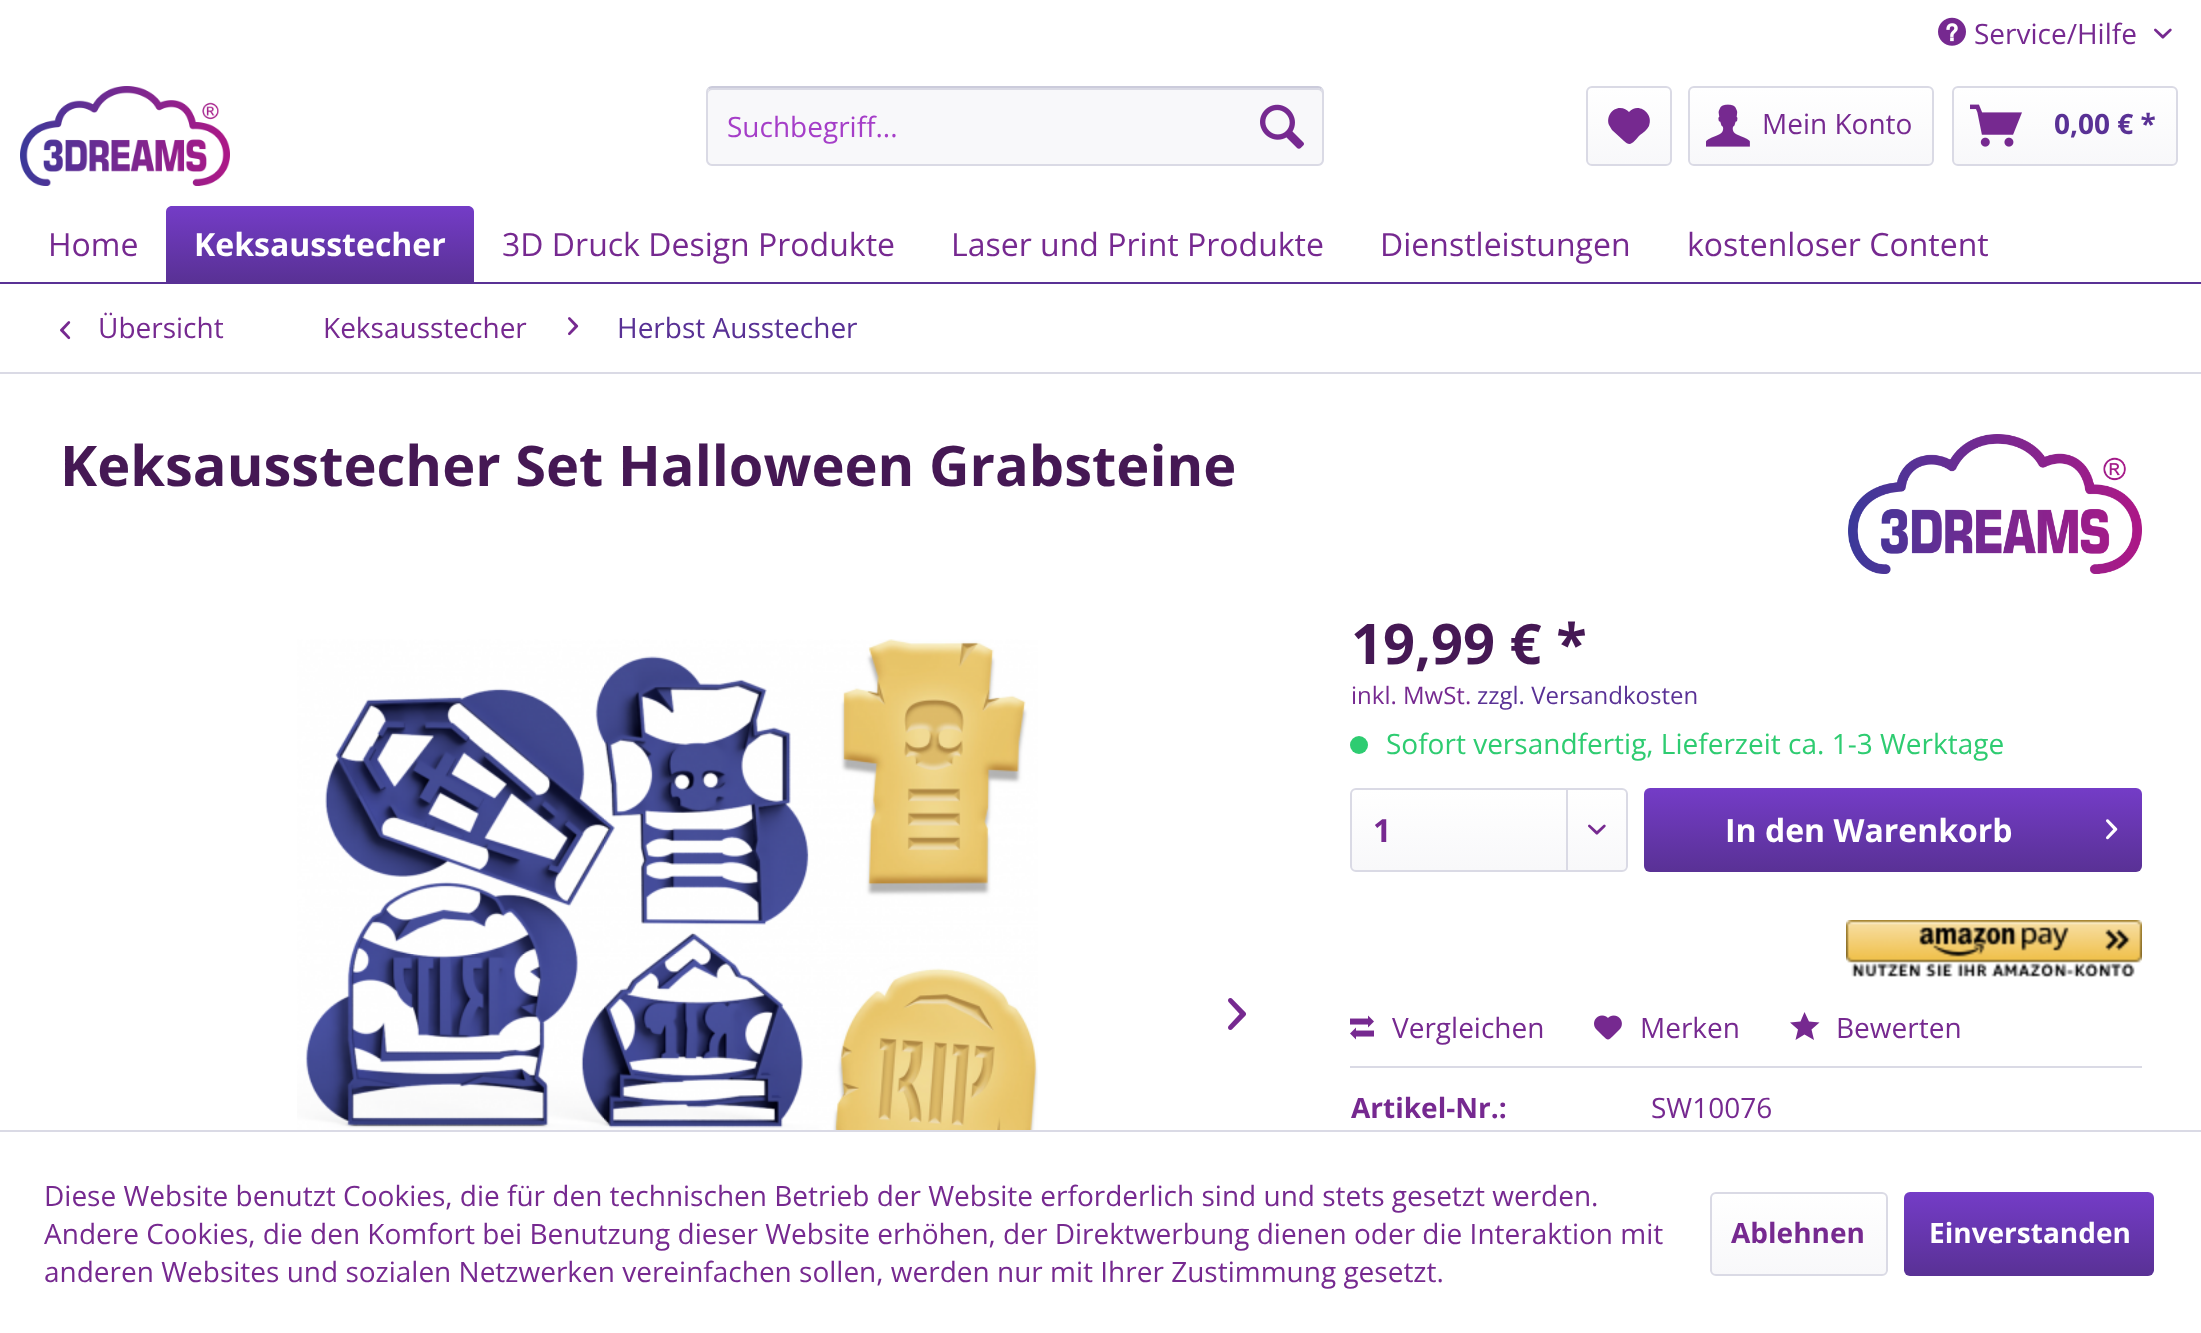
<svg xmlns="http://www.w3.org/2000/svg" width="2201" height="1333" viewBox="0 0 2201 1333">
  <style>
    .t1 { font: 28px Open Sans; fill: #762990; }
    .t2 { font: 28px Open Sans; fill: #a53ec8; }
    .t3 { font: bold 28px Open Sans; fill: #593195; }
    .t4 { font: 32px Open Sans; fill: #762990; }
    .t5 { font: bold 32px Open Sans; fill: #fff; }
    .t6 { font: 28px Open Sans; fill: #593195; }
    .t7 { font: bold 56px Open Sans; fill: #451854; }
    .t8 { font: 24px Open Sans; fill: #762990; }
    .t9 { font: 24px Open Sans; fill: #593195; }
    .t10 { font: 28px Open Sans; fill: #2ecc71; }
    .t11 { font: bold 32px Open Sans; fill: #762990; }
    .t12 { font: bold 28px Open Sans; fill: #762990; }
    .t13 { font: bold 28px Open Sans; fill: #fff; }
  </style>
  <defs>
    <linearGradient id="g1" gradientUnits="userSpaceOnUse" x1="1629" y1="88" x2="1629" y2="164"><stop offset="0" stop-color="#fff"/><stop offset="1" stop-color="#f8f8fa"/></linearGradient>
    <linearGradient id="g2" gradientUnits="userSpaceOnUse" x1="1811" y1="88" x2="1811" y2="164"><stop offset="0" stop-color="#fff"/><stop offset="1" stop-color="#f8f8fa"/></linearGradient>
    <linearGradient id="g3" gradientUnits="userSpaceOnUse" x1="2065" y1="88" x2="2065" y2="164"><stop offset="0" stop-color="#fff"/><stop offset="1" stop-color="#f8f8fa"/></linearGradient>
    <linearGradient id="g4" gradientUnits="userSpaceOnUse" x1="320" y1="206" x2="320" y2="282"><stop offset="0" stop-color="#743cc7"/><stop offset="1" stop-color="#593195"/></linearGradient>
    <linearGradient id="g5" gradientUnits="userSpaceOnUse" x1="1489" y1="790" x2="1489" y2="870"><stop offset="0" stop-color="#fff"/><stop offset="1" stop-color="#f8f8fa"/></linearGradient>
    <linearGradient id="g6" gradientUnits="userSpaceOnUse" x1="1893" y1="788" x2="1893" y2="872"><stop offset="0" stop-color="#743cc7"/><stop offset="1" stop-color="#593195"/></linearGradient>
    <linearGradient id="g7" gradientUnits="userSpaceOnUse" x1="1799" y1="1194" x2="1799" y2="1274"><stop offset="0" stop-color="#fff"/><stop offset="1" stop-color="#f8f8fa"/></linearGradient>
    <linearGradient id="g8" gradientUnits="userSpaceOnUse" x1="2029" y1="1192" x2="2029" y2="1276"><stop offset="0" stop-color="#743cc7"/><stop offset="1" stop-color="#593195"/></linearGradient>
  </defs>
  <rect width="100%" height="100%" fill="#fff"/>
  <image x="1938" y="17" width="28" height="29" href="images/1.png"/>
  <text x="1974" y="44" class="t1">Service/Hilfe</text>
  <image x="2154" y="28" width="18" height="11" href="images/2.png"/>
  <image x="20" y="86" width="210" height="100" href="images/3.png"/>
  <rect x="706" y="86" width="618" height="80" rx="6" fill="#f8f8fa"/>
  <path d="M712 90H1318C1320 90 1322 92 1322 94C1322 91 1322 88 1318 88H710L709 90C708 91 708 93 708 94C708 92 710 90 712 90Z" fill="#dadae5"/>
  <path d="M708.5 88.5C709.5 87.5 710.5 87 712 87H1318C1319.5 87 1320.5 87.5 1321.5 88.5" fill="none" stroke="#cbcbdb" stroke-width="2"/>
  <path d="M1321.5 88.5C1322.5 89.5 1323 90.5 1323 92V160C1323 161.5 1322.5 162.5 1321.5 163.5C1320.5 164.5 1319.5 165 1318 165H712C710.5 165 709.5 164.5 708.5 163.5C707.5 162.5 707 161.5 707 160V92C707 90.5 707.5 89.5 708.5 88.5" fill="none" stroke="#dadae5" stroke-width="2"/>
  <text x="727" y="137" class="t2">Suchbegriff...</text>
  <image x="1260" y="104" width="44" height="45" href="images/4.png"/>
  <rect x="1588" y="88" width="82" height="76" rx="4" fill="url(#g1)"/>
  <rect x="1587" y="87" width="84" height="78" rx="5" fill="none" stroke="#dadae5" stroke-width="2"/>
  <path d="M1620 108C1612 108 1606 117 1609 125L1612 130L1624 141C1631 148 1634 141 1640 135C1643 133 1647 130 1649 126C1654 113 1638 102 1629 112C1627 110 1624 108 1620 108Z" fill="#762990"/>
  <rect x="1690" y="88" width="242" height="76" rx="4" fill="url(#g2)"/>
  <rect x="1689" y="87" width="244" height="78" rx="5" fill="none" stroke="#dadae5" stroke-width="2"/>
  <image x="1706" y="104" width="44" height="43" href="images/5.png"/>
  <text x="1762" y="134" class="t1">Mein Konto</text>
  <rect x="1954" y="88" width="222" height="76" rx="4" fill="url(#g3)"/>
  <rect x="1953" y="87" width="224" height="78" rx="5" fill="none" stroke="#dadae5" stroke-width="2"/>
  <image x="1970" y="104" width="52" height="43" href="images/6.png"/>
  <text x="2054" y="134" class="t3">0,00 € *</text>
  <rect x="0" y="282" width="2201" height="2" fill="#593195"/>
  <text x="48" y="256" class="t4">Home</text>
  <path d="M172 206H468C471.5 206 474 208.5 474 212V282H166V212C166 208.5 168.5 206 172 206Z" fill="url(#g4)"/>
  <text x="194" y="256" class="t5">Keksausstecher</text>
  <text x="502" y="256" class="t4">3D Druck Design Produkte</text>
  <text x="951" y="256" class="t4">Laser und Print Produkte</text>
  <text x="1380" y="256" class="t4">Dienstleistungen</text>
  <text x="1687" y="256" class="t4">kostenloser Content</text>
  <rect x="0" y="372" width="2201" height="2" fill="#dadae5"/>
  <image x="60" y="321" width="11" height="19" href="images/7.png"/>
  <text x="98" y="338" class="t1">Übersicht</text>
  <text x="323" y="338" class="t1">Keksausstecher</text>
  <image x="568" y="317" width="11" height="19" href="images/8.png"/>
  <text x="617" y="338" class="t6">Herbst Ausstecher</text>
  <text x="60" y="486" class="t7">Keksausstecher Set Halloween Grabsteine</text>
  <image x="1848" y="434" width="294" height="140" href="images/9.png"/>
  <image x="297" y="639" width="741" height="491" href="images/10.png"/>
  <image x="1228" y="998" width="18" height="32" href="images/11.png"/>
  <text x="1351" y="664" class="t7">19,99 € *</text>
  <text x="1351" y="704" class="t8">inkl. MwSt.</text>
  <text x="1477" y="704" class="t9">zzgl. Versandkosten</text>
  <circle cx="1359" cy="745" r="9" fill="#2ecc71"/>
  <text x="1386" y="754" class="t10">Sofort versandfertig, Lieferzeit ca. 1-3 Werktage</text>
  <rect x="1352" y="790" width="274" height="80" rx="4" fill="url(#g5)"/>
  <rect x="1351" y="789" width="276" height="82" rx="5" fill="none" stroke="#dadae5" stroke-width="2"/>
  <text x="1373" y="842" class="t11">1</text>
  <rect x="1566" y="790" width="2" height="80" fill="#dadae5"/>
  <image x="1588" y="824" width="18" height="11" href="images/12.png"/>
  <rect x="1644" y="788" width="498" height="84" rx="6" fill="url(#g6)"/>
  <text x="1725" y="842" class="t5">In den Warenkorb</text>
  <image x="2106" y="819" width="12" height="21" href="images/13.png"/>
  <image x="1846" y="920" width="296" height="58" href="images/14.png"/>
  <rect x="1350" y="1066" width="792" height="2" fill="#dadae5"/>
  <image x="1350" y="1015" width="24" height="25" href="images/15.png"/>
  <text x="1392" y="1038" class="t1">Vergleichen</text>
  <image x="1594" y="1015" width="28" height="25" href="images/16.png"/>
  <text x="1640" y="1038" class="t1">Merken</text>
  <text x="1836" y="1038" class="t1">Bewerten</text>
  <path d="M1804.5 1012L1800.5 1021.5L1790 1022.5L1798 1029.5L1795.5 1040L1804.5 1034.5L1814 1040L1811.5 1029.5L1819.5 1022.5L1809 1021.5Z" fill="#762990"/>
  <text x="1351" y="1118" class="t12">Artikel-Nr.:</text>
  <text x="1651" y="1118" class="t1">SW10076</text>
  <rect x="0" y="1130" width="2201" height="2" fill="#dadae5"/>
  <text x="44" y="1206" class="t1">Diese Website benutzt Cookies, die für den technischen Betrieb der Website erforderlich sind und stets gesetzt werden.</text>
  <text x="44" y="1244" class="t1">Andere Cookies, die den Komfort bei Benutzung dieser Website erhöhen, der Direktwerbung dienen oder die Interaktion mit</text>
  <text x="44" y="1282" class="t1">anderen Websites und sozialen Netzwerken vereinfachen sollen, werden nur mit Ihrer Zustimmung gesetzt.</text>
  <rect x="1712" y="1194" width="174" height="80" rx="4" fill="url(#g7)"/>
  <rect x="1711" y="1193" width="176" height="82" rx="5" fill="none" stroke="#dadae5" stroke-width="2"/>
  <text x="1731" y="1243" class="t12">Ablehnen</text>
  <rect x="1904" y="1192" width="250" height="84" rx="6" fill="url(#g8)"/>
  <text x="1929" y="1243" class="t13">Einverstanden</text>
</svg>
